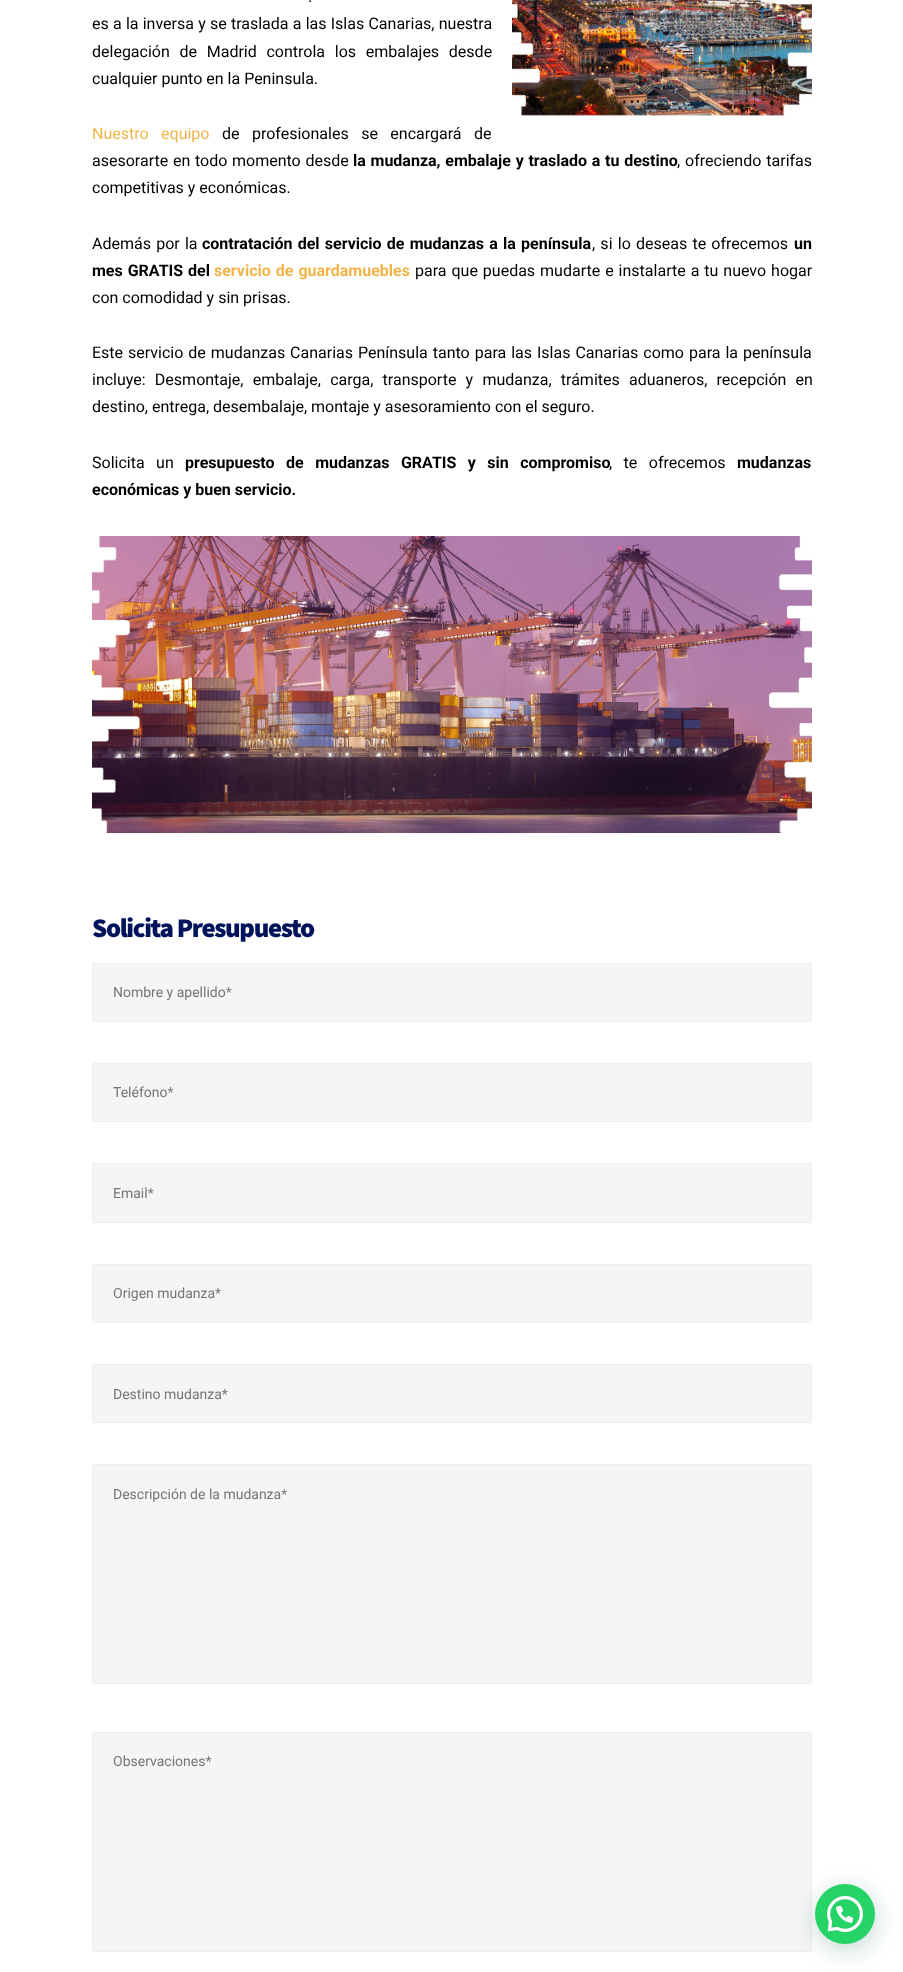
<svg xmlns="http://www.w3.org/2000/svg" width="903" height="1972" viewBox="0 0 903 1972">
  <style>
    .t1 { font: 16px Roboto; fill: #000; }
    .t2 { font: 16px Roboto; fill: #f2b448; }
    .t3 { font: bold 16px Roboto; fill: #000; }
    .t4 { font: bold 16px Roboto; fill: #f2b448; }
    .t5 { font: 900 27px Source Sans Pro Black; letter-spacing: -1.35px; fill: #00135b; }
    .t6 { font: 14px Roboto; fill: #757575; }
  </style>
  <rect width="100%" height="100%" fill="#fff"/>
  <text x="308" y="2" class="t1">.</text>
  <text x="92" y="29" word-spacing="0.25" class="t1">es a la inversa y se traslada a las Islas Canarias, nuestra</text>
  <text x="92" y="57" word-spacing="5.75" class="t1">delegación de Madrid controla los embalajes desde</text>
  <text x="92" y="84" class="t1">cualquier punto en la Peninsula.</text>
  <image x="512" y="0" width="300" height="116" href="images/1.png"/>
  <text x="92" y="139" word-spacing="8.5" class="t2">Nuestro equipo</text>
  <text x="222" y="139" word-spacing="8.5" class="t1">de profesionales se encargará de</text>
  <text x="92" y="166" word-spacing="0.75" class="t1">asesorarte en todo momento desde</text>
  <text x="353" y="166" word-spacing="0.75" class="t3">la mudanza, embalaje y traslado a tu destino</text>
  <text x="677" y="166" word-spacing="1" class="t1">, ofreciendo tarifas</text>
  <text x="92" y="193" class="t1">competitivas y económicas.</text>
  <text x="92" y="249" word-spacing="1.25" class="t1">Además por la</text>
  <text x="202" y="249" word-spacing="1.25" class="t3">contratación del servicio de mudanzas a la península</text>
  <text x="592" y="249" word-spacing="1.25" class="t1">, si lo deseas te ofrecemos</text>
  <text x="794" y="249" class="t3">un</text>
  <text x="92" y="276" word-spacing="1" class="t3">mes GRATIS del</text>
  <text x="214" y="276" word-spacing="1" class="t4">servicio de guardamuebles</text>
  <text x="415" y="276" word-spacing="1" class="t1">para que puedas mudarte e instalarte a tu nuevo hogar</text>
  <text x="92" y="303" class="t1">con comodidad y sin prisas.</text>
  <text x="92" y="358" word-spacing="1" class="t1">Este servicio de mudanzas Canarias Península tanto para las Islas Canarias como para la península</text>
  <text x="92" y="385" word-spacing="5.25" class="t1">incluye: Desmontaje, embalaje, carga, transporte y mudanza, trámites aduaneros, recepción en</text>
  <text x="92" y="412" class="t1">destino, entrega, desembalaje, montaje y asesoramiento con el seguro.</text>
  <text x="92" y="468" word-spacing="7.5" class="t1">Solicita un</text>
  <text x="185" y="468" word-spacing="7.5" class="t3">presupuesto de mudanzas GRATIS y sin compromiso</text>
  <text x="609" y="468" word-spacing="7.5" class="t1">, te ofrecemos</text>
  <text x="737" y="468" class="t3">mudanzas</text>
  <text x="92" y="495" class="t3">económicas y buen servicio.</text>
  <image x="92" y="536" width="720" height="297" href="images/2.png"/>
  <text x="92" y="937" class="t5">Solicita Presupuesto</text>
  <rect x="92.5" y="963.5" width="719" height="58" rx="1.5" fill="#f5f5f5" stroke="#eee"/>
  <text x="113" y="997" class="t6">Nombre y apellido*</text>
  <rect x="92.5" y="1063.5" width="719" height="58" rx="1.5" fill="#f5f5f5" stroke="#eee"/>
  <text x="113" y="1097" class="t6">Teléfono*</text>
  <rect x="92.5" y="1163.5" width="719" height="59" rx="1.5" fill="#f5f5f5" stroke="#eee"/>
  <text x="113" y="1198" class="t6">Email*</text>
  <rect x="92.5" y="1264.5" width="719" height="58" rx="1.5" fill="#f5f5f5" stroke="#eee"/>
  <text x="113" y="1298" class="t6">Origen mudanza*</text>
  <rect x="92.5" y="1364.5" width="719" height="58" rx="1.5" fill="#f5f5f5" stroke="#eee"/>
  <text x="113" y="1399" class="t6">Destino mudanza*</text>
  <rect x="92.5" y="1464.5" width="719" height="219" rx="1.5" fill="#f5f5f5" stroke="#eee"/>
  <text x="113" y="1499" class="t6">Descripción de la mudanza*</text>
  <rect x="92.5" y="1732.5" width="719" height="219" rx="1.5" fill="#f5f5f5" stroke="#eee"/>
  <text x="113" y="1766" class="t6">Observaciones*</text>
  <rect x="816" y="1890" width="60" height="60" rx="30" fill="#075e543d" filter="blur(12px)"/>
  <circle cx="845" cy="1914" r="30" fill="#25d366"/>
  <image x="827" y="1896" width="36" height="36" href="images/3.png"/>
</svg>
